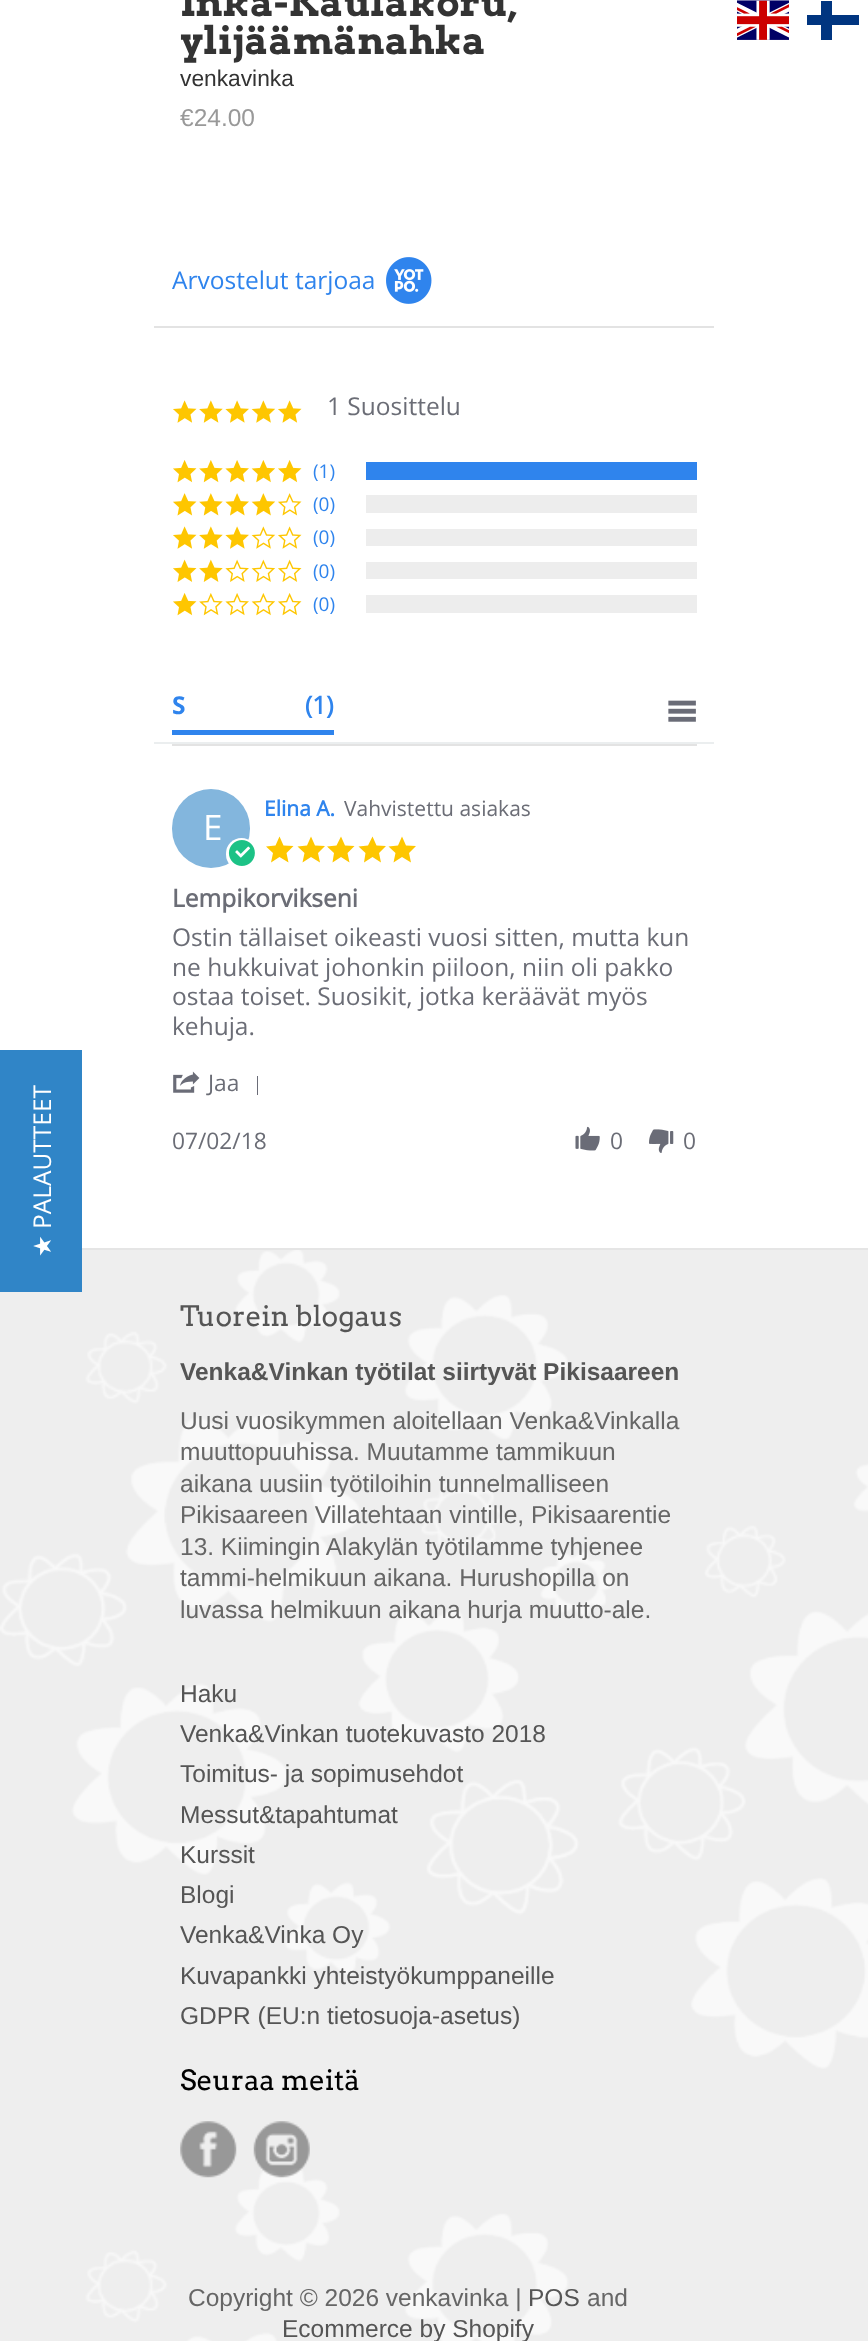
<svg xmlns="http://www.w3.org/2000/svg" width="868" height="2341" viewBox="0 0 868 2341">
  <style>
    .t1 { font: bold 38.5px Arvo; fill: #333; }
    .t2 { font: 22.75px Liberation Sans; fill: #333; }
    .t3 { font: 24.5px Liberation Sans; fill: #999; }
    .t4 { font: 24.5px Open Sans; fill: #2f84ed; }
    .t5 { font: 24.5px Open Sans; fill: #6b6d76; }
    .t6 { font: 19px Open Sans; fill: #2f84ed; }
    .t7 { font: bold 24.5px Noto Sans; fill: #2f84ed; }
    .t8 { font: bold 24.5px Open Sans; fill: #2f84ed; }
    .t9 { font: bold 21px Open Sans; fill: #2f84ed; }
    .t10 { font: 21px Open Sans; fill: #6b6d76; }
    .t11 { font: 35px Open Sans; fill: #fff; }
    .t12 { font: bold 24.5px Open Sans; fill: #6b6d76; }
    .t13 { font: 22.75px Open Sans; fill: #6b6d76; }
    .t14 { font: 24.5px Open Sans; fill: #fff; }
    .t15 { font: 24.5px DejaVu Sans; fill: #fff; }
    .t16 { font: 28px Arvo; fill: #555; }
    .t17 { font: bold 24.5px Liberation Sans; fill: #555; }
    .t18 { font: 24.5px Liberation Sans; fill: #666; }
    .t19 { font: 24.5px Liberation Sans; fill: #555; }
    .t20 { font: 28px Arvo; fill: #000; }
  </style>
  <rect width="100%" height="100%" fill="#fff"/>
  <text x="180" y="16" class="t1">Inka-Kaulakoru,</text>
  <text x="180" y="54" class="t1">ylijäämänahka</text>
  <text x="180" y="86" class="t2">venkavinka</text>
  <text x="180" y="126" class="t3">€24.00</text>
  <rect x="154" y="326" width="560" height="2" fill="#e3e3e3"/>
  <text x="172" y="289" class="t4">Arvostelut tarjoaa</text>
  <image x="386" y="257" width="46" height="47" href="images/1.png"/>
  <image x="173" y="400" width="24" height="23" href="images/2.png"/>
  <image x="199" y="400" width="24" height="23" href="images/3.png"/>
  <image x="225" y="400" width="24" height="23" href="images/4.png"/>
  <image x="251" y="400" width="25" height="23" href="images/5.png"/>
  <image x="278" y="400" width="24" height="23" href="images/2.png"/>
  <text x="327" y="415" class="t5">1 Suosittelu</text>
  <image x="173" y="460" width="24" height="23" href="images/6.png"/>
  <image x="199" y="460" width="24" height="23" href="images/7.png"/>
  <image x="225" y="460" width="24" height="23" href="images/8.png"/>
  <image x="251" y="460" width="24" height="23" href="images/9.png"/>
  <image x="278" y="460" width="24" height="23" href="images/6.png"/>
  <image x="173" y="493" width="24" height="23" href="images/10.png"/>
  <image x="199" y="493" width="24" height="23" href="images/11.png"/>
  <image x="225" y="493" width="24" height="23" href="images/12.png"/>
  <image x="251" y="493" width="25" height="23" href="images/13.png"/>
  <image x="278" y="493" width="24" height="23" href="images/14.png"/>
  <image x="173" y="526" width="24" height="23" href="images/2.png"/>
  <image x="199" y="526" width="24" height="23" href="images/3.png"/>
  <image x="225" y="526" width="24" height="23" href="images/4.png"/>
  <image x="251" y="526" width="25" height="23" href="images/15.png"/>
  <image x="278" y="526" width="24" height="23" href="images/16.png"/>
  <image x="173" y="559" width="24" height="23" href="images/17.png"/>
  <image x="199" y="559" width="24" height="23" href="images/18.png"/>
  <image x="225" y="559" width="24" height="23" href="images/19.png"/>
  <image x="251" y="559" width="25" height="23" href="images/20.png"/>
  <image x="278" y="559" width="24" height="23" href="images/21.png"/>
  <image x="173" y="593" width="24" height="23" href="images/6.png"/>
  <image x="199" y="593" width="24" height="23" href="images/22.png"/>
  <image x="225" y="593" width="24" height="23" href="images/23.png"/>
  <image x="251" y="593" width="24" height="23" href="images/24.png"/>
  <image x="278" y="593" width="24" height="23" href="images/25.png"/>
  <text x="313" y="478" class="t6">(1)</text>
  <text x="313" y="511" class="t6">(0)</text>
  <text x="313" y="544" class="t6">(0)</text>
  <text x="313" y="578" class="t6">(0)</text>
  <text x="313" y="611" class="t6">(0)</text>
  <rect x="366" y="462" width="331" height="18" fill="#2f84ed"/>
  <rect x="366" y="495" width="331" height="18" fill="#ededed"/>
  <rect x="366" y="529" width="331" height="17" fill="#ededed"/>
  <rect x="366" y="562" width="331" height="17" fill="#ededed"/>
  <rect x="366" y="595" width="331" height="18" fill="#ededed"/>
  <rect x="154" y="742" width="560" height="2" fill="#ebeeef"/>
  <rect x="172" y="730" width="162" height="5" fill="#2f84ed"/>
  <text x="172" y="714" class="t7">S</text>
  <text x="305" y="714" class="t8">(1)</text>
  <image x="668" y="700" width="28" height="22" href="images/26.png"/>
  <rect x="172" y="744" width="525" height="2" fill="#e3e3e3"/>
  <text x="264" y="816" class="t9">Elina A.</text>
  <text x="344" y="816" class="t10">Vahvistettu asiakas</text>
  <path d="M288.5 862.5L279.5 857L271 862.5L273 853L266 846.5L275.5 845.5L279.5 836.5L283.5 845.5L293.5 846L286.5 853ZM320 862.5L311 857L302.5 862.5L304.5 853L297.5 846.5L307 845.5L311 836.5L315 845.5L325 846L318 853Z" fill="#fec600"/>
  <path d="M349.5 862.5L341 857L332.5 862.5L334 853L327 846.5L336.5 845.5L341 836.5L345 845.5L354.5 846L347.5 853ZM381 862.5L372.5 857L364 862.5L365.5 853L358.5 846.5L368 845.5L372.5 836.5L376.5 845.5L386 846L379 853Z" fill="#fec600"/>
  <path d="M411 862.5L402 857L393.5 862.5L395.5 853L388.5 846.5L398 845.5L402 836.5L406 845.5L416 846L409 853Z" fill="#fec600"/>
  <rect x="172" y="789" width="78" height="79" rx="39" fill="#83b6dd"/>
  <text x="203" y="840" class="t11">E</text>
  <rect x="226" y="838" width="31" height="32" rx="15.5" fill="#fff"/>
  <image x="228" y="840" width="27" height="26" href="images/27.png"/>
  <text x="172" y="907" class="t12">Lempikorvikseni</text>
  <text x="172" y="946" class="t5">Ostin tällaiset oikeasti vuosi sitten, mutta kun</text>
  <text x="172" y="976" class="t5">ne hukkuivat johonkin piiloon, niin oli pakko</text>
  <text x="172" y="1005" class="t5">ostaa toiset. Suosikit, jotka keräävät myös</text>
  <text x="172" y="1035" class="t5">kehuja.</text>
  <image x="173" y="1071" width="27" height="22" href="images/28.png"/>
  <text x="208" y="1091" class="t13">Jaa</text>
  <rect x="257" y="1076" width="1" height="19" fill="#6a6c77"/>
  <text x="172" y="1149" class="t13">07/02/18</text>
  <image x="575" y="1126" width="25" height="25" href="images/29.png"/>
  <text x="610" y="1149" class="t13">0</text>
  <image x="649" y="1129" width="25" height="24" href="images/30.png"/>
  <text x="683" y="1149" class="t13">0</text>
  <image x="737" y="0" width="52" height="40" href="images/31.png"/>
  <rect x="807" y="15" width="52" height="10" fill="#003580"/>
  <rect x="821" y="1" width="11" height="39" fill="#003580"/>
  <rect x="0" y="1250" width="868" height="1091" fill="#eee"/>
  <image x="0" y="1250" width="868" height="1091" href="images/32.png"/>
  <rect x="0" y="1050" width="82" height="242" fill="#3085c7"/>
  <text x="51" y="1229" transform="rotate(-90 51 1229)" class="t14">PALAUTTEET</text>
  <text x="51" y="1257" transform="rotate(-90 51 1257)" class="t15">★</text>
  <rect x="82" y="1248" width="786" height="2" fill="#e5e5e5"/>
  <text x="180" y="1326" class="t16">Tuorein blogaus</text>
  <text x="180" y="1380" class="t17">Venka&amp;Vinkan työtilat siirtyvät Pikisaareen</text>
  <text x="180" y="1429" class="t18">Uusi vuosikymmen aloitellaan Venka&amp;Vinkalla</text>
  <text x="180" y="1460" class="t18">muuttopuuhissa. Muutamme tammikuun</text>
  <text x="180" y="1492" class="t18">aikana uusiin työtiloihin tunnelmalliseen</text>
  <text x="180" y="1523" class="t18">Pikisaareen Villatehtaan vintille, Pikisaarentie</text>
  <text x="180" y="1555" class="t18">13. Kiimingin Alakylän työtilamme tyhjenee</text>
  <text x="180" y="1586" class="t18">tammi-helmikuun aikana. Hurushopilla on</text>
  <text x="180" y="1618" class="t18">luvassa helmikuun aikana hurja muutto-ale.</text>
  <text x="180" y="1702" class="t19">Haku</text>
  <text x="180" y="1742" class="t19">Venka&amp;Vinkan tuotekuvasto 2018</text>
  <text x="180" y="1782" class="t19">Toimitus- ja sopimusehdot</text>
  <text x="180" y="1823" class="t19">Messut&amp;tapahtumat</text>
  <text x="180" y="1863" class="t19">Kurssit</text>
  <text x="180" y="1903" class="t19">Blogi</text>
  <text x="180" y="1943" class="t19">Venka&amp;Vinka Oy</text>
  <text x="180" y="1984" class="t19">Kuvapankki yhteistyökumppaneille</text>
  <text x="180" y="2024" class="t19">GDPR (EU:n tietosuoja-asetus)</text>
  <text x="180" y="2090" class="t20">Seuraa meitä</text>
  <image x="180" y="2121" width="57" height="57" href="images/33.png"/>
  <image x="253" y="2121" width="57" height="57" href="images/34.png"/>
  <text x="188" y="2306" class="t18">Copyright © 2026 venkavinka |</text>
  <text x="528" y="2306" class="t19">POS</text>
  <text x="587" y="2306" class="t18">and</text>
  <text x="282" y="2337" class="t19">Ecommerce by Shopify</text>
</svg>
